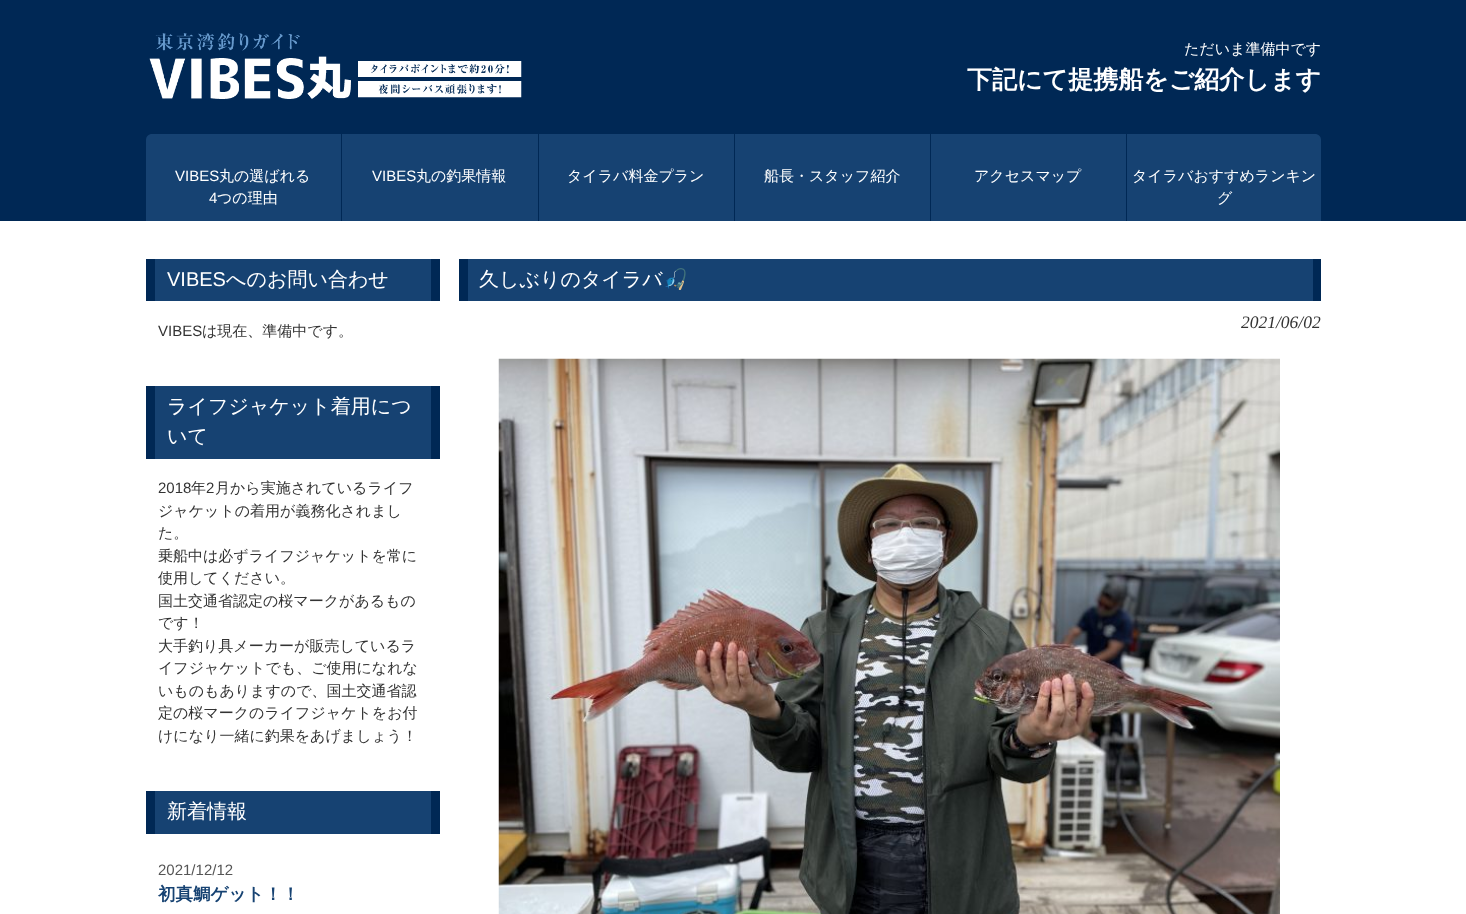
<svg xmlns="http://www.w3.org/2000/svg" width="1466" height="914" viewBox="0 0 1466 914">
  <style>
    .t1 { font: 500 15px WenQuanYi Zen Hei; fill: #fff; }
    .t2 { font: bold 25px WenQuanYi Zen Hei; fill: #fff; }
    .t3 { font: 15px Liberation Sans; fill: #fff; }
    .t4 { font: 20px Liberation Sans; fill: #fff; }
    .t5 { font: 500 20px WenQuanYi Zen Hei; fill: #fff; }
    .t6 { font: 15px Liberation Sans; fill: #333; }
    .t7 { font: 500 15px WenQuanYi Zen Hei; fill: #333; }
    .t8 { font: 15px Liberation Sans; fill: #555; }
    .t9 { font: bold 17.5px WenQuanYi Zen Hei; fill: #164272; }
    .t10 { font: 20px Noto Color Emoji; fill: #fff; }
    .t11 { font: italic 17.5px Liberation Serif; fill: #333; }
  </style>
  <rect width="100%" height="100%" fill="#fff"/>
  <rect x="0" y="0" width="1466" height="221" fill="#002855"/>
  <image x="149" y="33" width="373" height="66" href="images/1.png"/>
  <text x="1184" y="54" class="t1">ただいま準備中です</text>
  <text x="967" y="88" class="t2">下記にて提携船をご紹介します</text>
  <path d="M152 134H1315C1318.5 134 1321 136.5 1321 140V221H146V140C146 136.5 148.5 134 152 134Z" fill="#164272"/>
  <text x="175" y="181" class="t3">VIBES</text>
  <text x="219" y="181" class="t1">丸の選ばれる</text>
  <text x="209" y="203" class="t3">4</text>
  <text x="217" y="203" class="t1">つの理由</text>
  <rect x="341" y="134" width="1" height="87" fill="#002855"/>
  <text x="372" y="181" class="t3">VIBES</text>
  <text x="416" y="181" class="t1">丸の釣果情報</text>
  <rect x="538" y="134" width="1" height="87" fill="#002855"/>
  <text x="567" y="181" class="t1">タイラバ料金プラン</text>
  <rect x="734" y="134" width="1" height="87" fill="#002855"/>
  <text x="764" y="181" class="t1">船長・スタッフ紹介</text>
  <rect x="930" y="134" width="1" height="87" fill="#002855"/>
  <text x="974" y="181" class="t1">アクセスマップ</text>
  <rect x="1126" y="134" width="1" height="87" fill="#002855"/>
  <text x="1132" y="181" class="t1">タイラバおすすめランキン</text>
  <text x="1217" y="203" class="t1">グ</text>
  <rect x="155" y="259" width="276" height="42" fill="#164272"/>
  <rect x="431" y="259" width="9" height="42" fill="#002855"/>
  <rect x="146" y="259" width="9" height="42" fill="#002855"/>
  <text x="167" y="286" class="t4">VIBES</text>
  <text x="226" y="286" class="t5">へのお問い合わせ</text>
  <text x="158" y="336" class="t6">VIBES</text>
  <text x="202" y="336" class="t7">は現在、準備中です。</text>
  <rect x="155" y="386" width="276" height="73" fill="#164272"/>
  <rect x="431" y="386" width="9" height="73" fill="#002855"/>
  <rect x="146" y="386" width="9" height="73" fill="#002855"/>
  <text x="167" y="413" class="t5">ライフジャケット着用につ</text>
  <text x="167" y="443" class="t5">いて</text>
  <text x="158" y="493" class="t6">2018</text>
  <text x="191" y="493" class="t7">年</text>
  <text x="206" y="493" class="t6">2</text>
  <text x="215" y="493" class="t7">月から実施されているライフ</text>
  <text x="158" y="516" class="t7">ジャケットの着用が義務化されまし</text>
  <text x="158" y="538" class="t7">た。</text>
  <text x="158" y="561" class="t7">乗船中は必ずライフジャケットを常に</text>
  <text x="158" y="583" class="t7">使用してください。</text>
  <text x="158" y="606" class="t7">国土交通省認定の桜マークがあるもの</text>
  <text x="158" y="628" class="t7">です！</text>
  <text x="158" y="651" class="t7">大手釣り具メーカーが販売しているラ</text>
  <text x="158" y="673" class="t7">イフジャケットでも、ご使用になれな</text>
  <text x="158" y="696" class="t7">いものもありますので、国土交通省認</text>
  <text x="158" y="718" class="t7">定の桜マークのライフジャケトをお付</text>
  <text x="158" y="741" class="t7">けになり一緒に釣果をあげましょう！</text>
  <rect x="155" y="791" width="276" height="43" fill="#164272"/>
  <rect x="431" y="791" width="9" height="43" fill="#002855"/>
  <rect x="146" y="791" width="9" height="43" fill="#002855"/>
  <text x="167" y="818" class="t5">新着情報</text>
  <text x="158" y="875" class="t8">2021/12/12</text>
  <text x="158" y="900" class="t9">初真鯛ゲット！！</text>
  <rect x="468" y="259" width="845" height="42" fill="#164272"/>
  <rect x="1313" y="259" width="8" height="42" fill="#002855"/>
  <rect x="459" y="259" width="9" height="42" fill="#002855"/>
  <text x="479" y="286" class="t5">久しぶりのタイラバ</text>
  <text x="663" y="286" class="t10">🎣</text>
  <text x="1241" y="328" class="t11">2021/06/02</text>
  <image x="498" y="358" width="782" height="556" href="images/2.png"/>
</svg>
